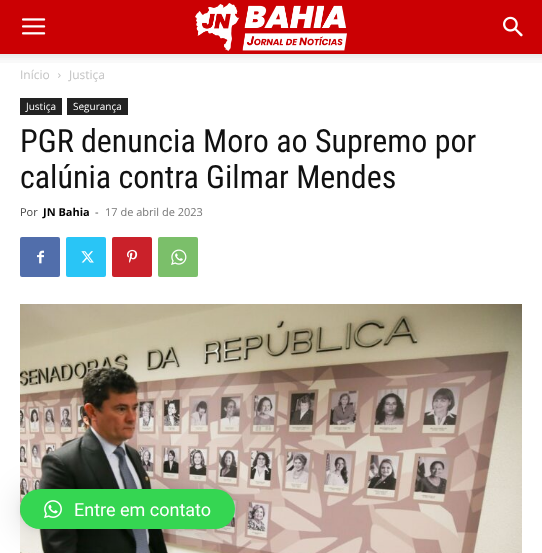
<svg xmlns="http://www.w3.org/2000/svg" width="542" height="553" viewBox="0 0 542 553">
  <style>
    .t1 { font: 12px Open Sans; fill: #c3c3c3; }
    .t2 { font: 10px Open Sans; fill: #fff; }
    .t3 { font: 32px Roboto Condensed; fill: #111; }
    .t4 { font: 11px Open Sans; fill: #444; }
    .t5 { font: bold 11px Open Sans; fill: #000; }
    .t6 { font: 11px Open Sans; fill: #767676; }
    .t7 { font: 18px Roboto; fill: #fff; }
  </style>
  <rect width="100%" height="100%" fill="#fff"/>
  <rect x="0" y="0" width="542" height="54" fill="#cb0003"/>
  <image x="22" y="18" width="24" height="17" href="images/1.png"/>
  <image x="195" y="3" width="152" height="48" href="images/2.png"/>
  <image x="503" y="16" width="20" height="21" href="images/3.png"/>
  <image x="0" y="54" width="542" height="9" href="images/4.png"/>
  <text x="20" y="79" class="t1">Início</text>
  <image x="58" y="73" width="3" height="5" href="images/5.png"/>
  <text x="69" y="79" class="t1">Justiça</text>
  <rect x="20" y="98" width="42" height="17" fill="#222"/>
  <text x="26" y="110" class="t2">Justiça</text>
  <rect x="67" y="98" width="61" height="17" fill="#222"/>
  <text x="73" y="110" class="t2">Segurança</text>
  <text x="20" y="152" class="t3">PGR denuncia Moro ao Supremo por</text>
  <text x="20" y="188" class="t3">calúnia contra Gilmar Mendes</text>
  <text x="20" y="216" class="t4">Por</text>
  <text x="43" y="216" class="t5">JN Bahia</text>
  <text x="95" y="216" class="t4">-</text>
  <text x="105" y="216" class="t6">17 de abril de 2023</text>
  <rect x="20" y="237" width="40" height="40" rx="2" fill="#516eab"/>
  <image x="37" y="250" width="7" height="14" href="images/6.png"/>
  <rect x="66" y="237" width="40" height="40" rx="2" fill="#29c5f6"/>
  <image x="81" y="251" width="13" height="12" href="images/7.png"/>
  <rect x="112" y="237" width="40" height="40" rx="2" fill="#ca212a"/>
  <image x="127" y="249" width="11" height="14" href="images/8.png"/>
  <rect x="158" y="237" width="40" height="40" rx="2" fill="#7bbf6a"/>
  <image x="171" y="249" width="16" height="16" href="images/9.png"/>
  <image x="20" y="304" width="502" height="249" href="images/10.png"/>
  <rect x="20" y="491" width="215" height="40" rx="20" fill="#00000029" filter="blur(16px)"/>
  <rect x="20" y="490" width="215" height="40" rx="20" fill="#0000000f" filter="blur(3px)"/>
  <rect x="20" y="489" width="215" height="40" rx="20" fill="#35d652"/>
  <image x="44" y="500" width="18" height="19" href="images/11.png"/>
  <text x="74" y="516" class="t7">Entre em contato</text>
</svg>
